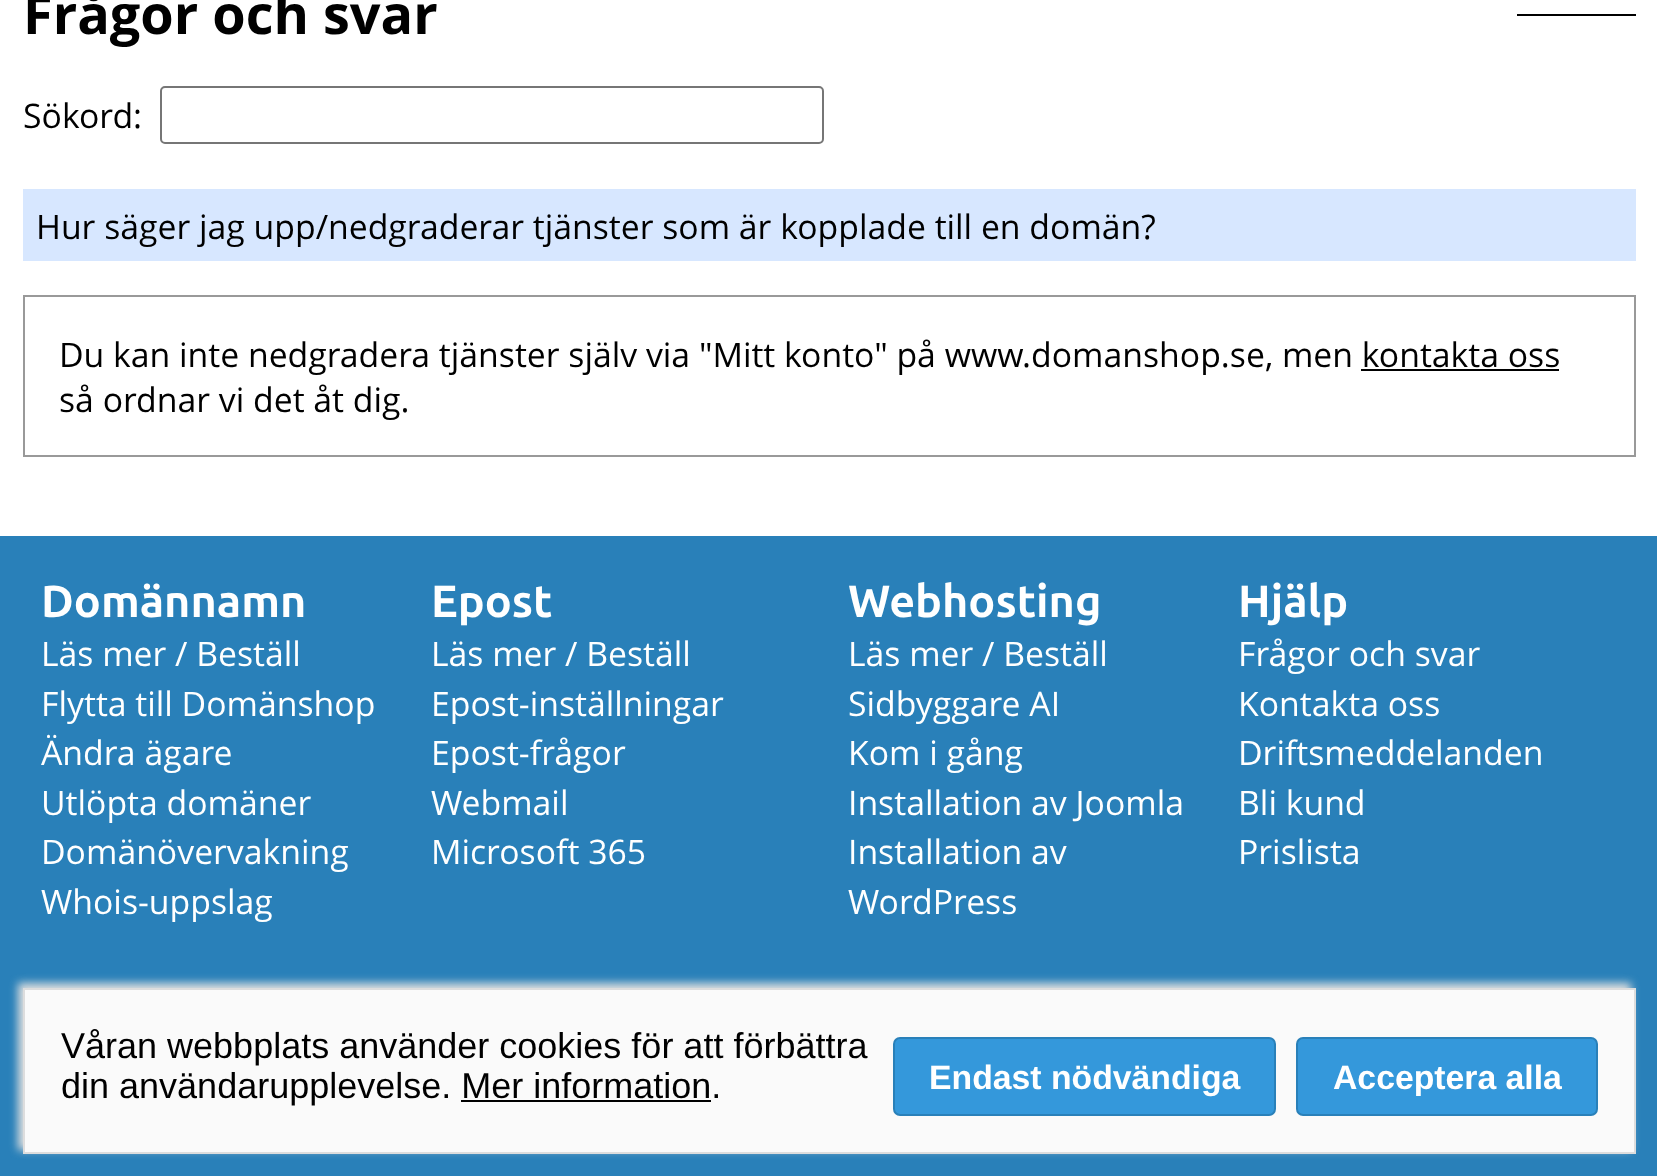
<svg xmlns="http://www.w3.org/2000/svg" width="1657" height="1176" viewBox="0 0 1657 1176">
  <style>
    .t1 { font: bold 54px Open Sans; fill: #000; }
    .t2 { font: 33.75px Open Sans; fill: #000; }
    .t3 { font: bold 45px Ubuntu; fill: #fff; }
    .t4 { font: 33.75px Open Sans; fill: #fff; }
    .t5 { font: 36px Liberation Sans; fill: #000; }
    .t6 { font: bold 33.75px Liberation Sans; fill: #fff; }
  </style>
  <rect width="100%" height="100%" fill="#fff"/>
  <text x="23" y="34" class="t1">Frågor och svar</text>
  <rect x="1517" y="14" width="119" height="2" fill="#000"/>
  <text x="23" y="128" class="t2">Sökord:</text>
  <rect x="161" y="87" width="662" height="56" rx="4" fill="none" stroke="#767676" stroke-width="2"/>
  <rect x="23" y="189" width="1613" height="72" fill="#d7e7ff"/>
  <text x="36" y="239" class="t2">Hur säger jag upp/nedgraderar tjänster som är kopplade till en domän?</text>
  <rect x="24" y="296" width="1611" height="160" fill="none" stroke="#999" stroke-width="2"/>
  <text x="59" y="367" class="t2">Du kan inte nedgradera tjänster själv via "Mitt konto" på www.domanshop.se, men kontakta oss</text>
  <rect x="1361" y="369" width="198" height="2" fill="#000"/>
  <text x="59" y="412" class="t2">så ordnar vi det åt dig.</text>
  <rect x="0" y="536" width="1657" height="640" fill="#2980b9"/>
  <text x="41" y="617" class="t3">Domännamn</text>
  <text x="41" y="666" class="t4">Läs mer / Beställ</text>
  <text x="41" y="716" class="t4">Flytta till Domänshop</text>
  <text x="41" y="765" class="t4">Ändra ägare</text>
  <text x="41" y="815" class="t4">Utlöpta domäner</text>
  <text x="41" y="864" class="t4">Domänövervakning</text>
  <text x="41" y="914" class="t4">Whois-uppslag</text>
  <text x="431" y="617" class="t3">Epost</text>
  <text x="431" y="666" class="t4">Läs mer / Beställ</text>
  <text x="431" y="716" class="t4">Epost-inställningar</text>
  <text x="431" y="765" class="t4">Epost-frågor</text>
  <text x="431" y="815" class="t4">Webmail</text>
  <text x="431" y="864" class="t4">Microsoft 365</text>
  <text x="848" y="617" class="t3">Webhosting</text>
  <text x="848" y="666" class="t4">Läs mer / Beställ</text>
  <text x="848" y="716" class="t4">Sidbyggare AI</text>
  <text x="848" y="765" class="t4">Kom i gång</text>
  <text x="848" y="815" class="t4">Installation av Joomla</text>
  <text x="848" y="864" class="t4">Installation av</text>
  <text x="848" y="914" class="t4">WordPress</text>
  <text x="1238" y="617" class="t3">Hjälp</text>
  <text x="1238" y="666" class="t4">Frågor och svar</text>
  <text x="1238" y="716" class="t4">Kontakta oss</text>
  <text x="1238" y="765" class="t4">Driftsmeddelanden</text>
  <text x="1238" y="815" class="t4">Bli kund</text>
  <text x="1238" y="864" class="t4">Prislista</text>
  <rect x="18" y="983" width="1613" height="167" fill="#ddd" filter="blur(4.5px)"/>
  <rect x="24" y="989" width="1611" height="164" fill="#fafafa" stroke="#ddd" stroke-width="2"/>
  <text x="61" y="1058" class="t5">Våran webbplats använder cookies för att förbättra</text>
  <text x="61" y="1098" class="t5">din användarupplevelse. Mer information.</text>
  <rect x="461" y="1100" width="250" height="2" fill="#000"/>
  <rect x="894" y="1038" width="381" height="77" rx="6" fill="#3498db" stroke="#2980b9" stroke-width="2"/>
  <text x="929" y="1089" class="t6">Endast nödvändiga</text>
  <rect x="1297" y="1038" width="300" height="77" rx="6" fill="#3498db" stroke="#2980b9" stroke-width="2"/>
  <text x="1333" y="1089" class="t6">Acceptera alla</text>
</svg>
